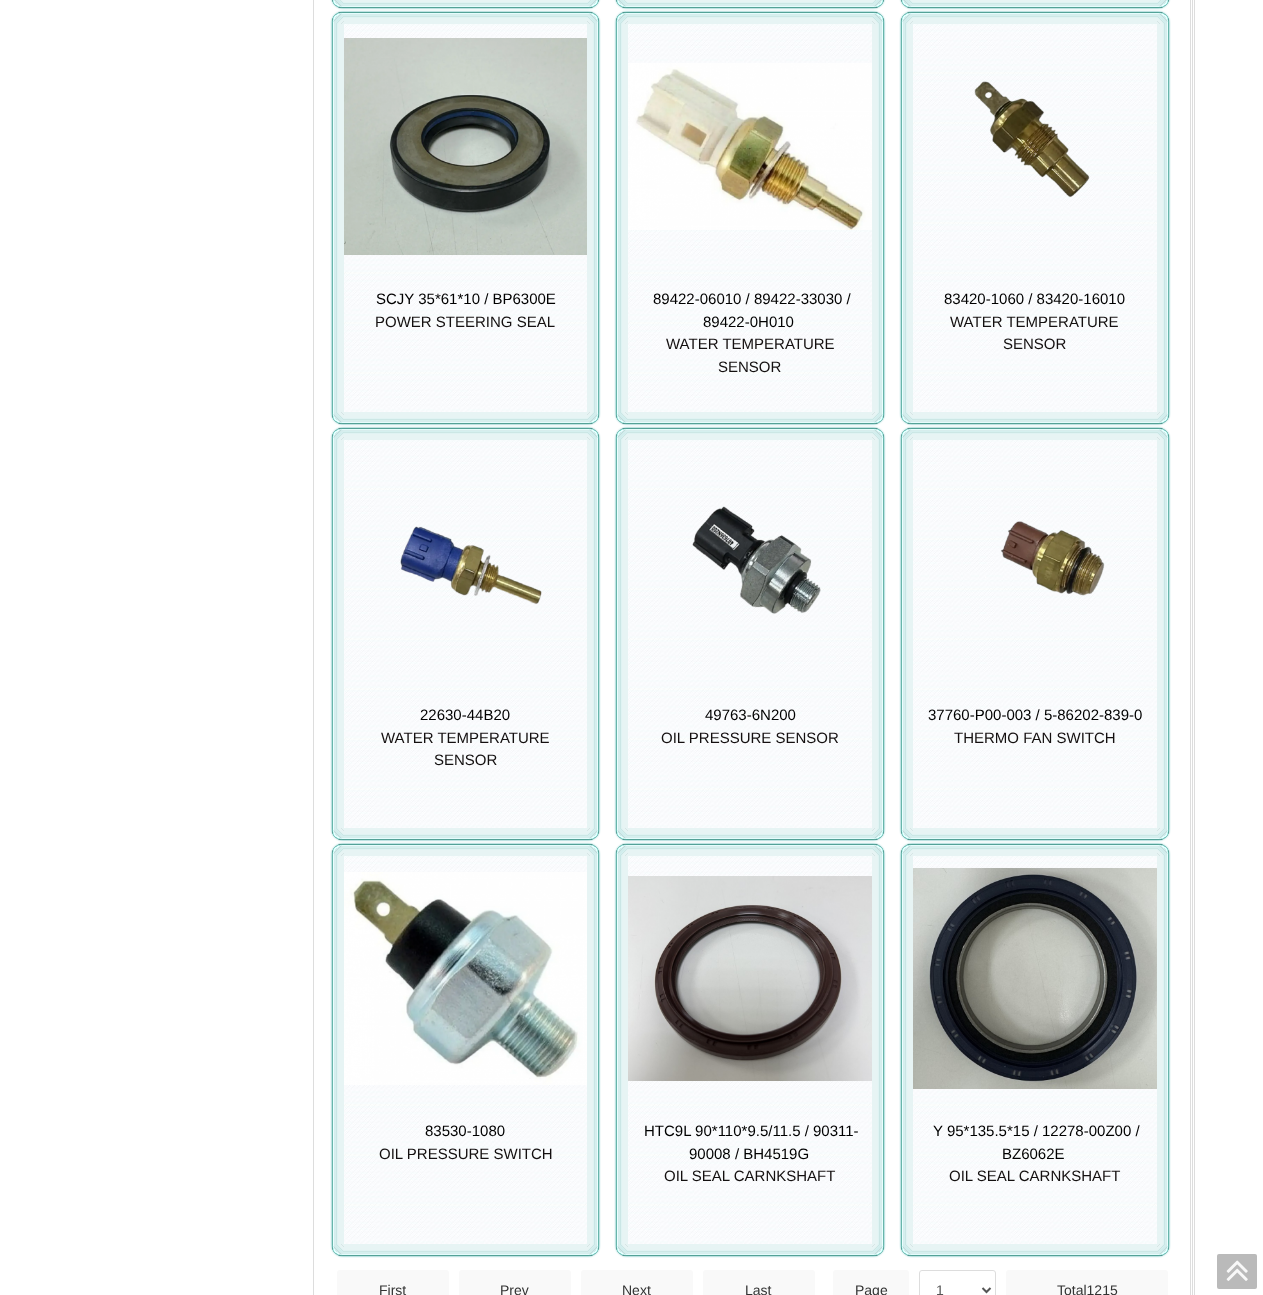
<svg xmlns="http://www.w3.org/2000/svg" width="1263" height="1295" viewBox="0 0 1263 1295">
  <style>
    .t1 { font: 15px Liberation Sans; fill: #000; }
    .t2 { font: 15px Liberation Sans; fill: #141010; }
    .t3 { font: 14px Liberation Sans; fill: #333; }
    .t4 { font: 14px Liberation Sans; fill: #555; }
  </style>
  <rect width="100%" height="100%" fill="#fff"/>
  <rect x="313" y="0" width="1" height="1295" fill="#ddd"/>
  <image x="330" y="0" width="14" height="10" href="images/1.png"/>
  <image x="344" y="0" width="243" height="10" href="images/2.png"/>
  <image x="587" y="0" width="14" height="10" href="images/3.png"/>
  <image x="614" y="0" width="14" height="10" href="images/1.png"/>
  <image x="628" y="0" width="244" height="10" href="images/4.png"/>
  <image x="872" y="0" width="14" height="10" href="images/3.png"/>
  <image x="899" y="0" width="14" height="10" href="images/1.png"/>
  <image x="913" y="0" width="244" height="10" href="images/4.png"/>
  <image x="1157" y="0" width="14" height="10" href="images/3.png"/>
  <image x="330" y="10" width="14" height="14" href="images/5.png"/>
  <image x="344" y="10" width="243" height="14" href="images/6.png"/>
  <image x="587" y="10" width="14" height="14" href="images/7.png"/>
  <image x="330" y="24" width="14" height="388" href="images/8.png"/>
  <image x="344" y="24" width="243" height="388" href="images/9.png"/>
  <image x="344" y="38" width="243" height="217" href="images/10.png"/>
  <text x="376" y="304" class="t1">SCJY 35*61*10 / BP6300E</text>
  <text x="375" y="327" class="t2">POWER STEERING SEAL</text>
  <image x="587" y="24" width="14" height="388" href="images/11.png"/>
  <image x="330" y="412" width="14" height="14" href="images/12.png"/>
  <image x="344" y="412" width="243" height="14" href="images/13.png"/>
  <image x="587" y="412" width="14" height="14" href="images/14.png"/>
  <image x="614" y="10" width="14" height="14" href="images/5.png"/>
  <image x="628" y="10" width="244" height="14" href="images/15.png"/>
  <image x="872" y="10" width="14" height="14" href="images/7.png"/>
  <image x="614" y="24" width="14" height="388" href="images/8.png"/>
  <image x="628" y="24" width="244" height="388" href="images/16.png"/>
  <image x="628" y="63" width="244" height="167" href="images/17.png"/>
  <text x="653" y="304" class="t1">89422-06010 / 89422-33030 /</text>
  <text x="703" y="327" class="t1">89422-0H010</text>
  <text x="666" y="349" class="t2">WATER TEMPERATURE</text>
  <text x="718" y="372" class="t2">SENSOR</text>
  <image x="872" y="24" width="14" height="388" href="images/11.png"/>
  <image x="614" y="412" width="14" height="14" href="images/12.png"/>
  <image x="628" y="412" width="244" height="14" href="images/18.png"/>
  <image x="872" y="412" width="14" height="14" href="images/14.png"/>
  <image x="899" y="10" width="14" height="14" href="images/5.png"/>
  <image x="913" y="10" width="244" height="14" href="images/15.png"/>
  <image x="1157" y="10" width="14" height="14" href="images/7.png"/>
  <image x="899" y="24" width="14" height="388" href="images/8.png"/>
  <image x="913" y="24" width="244" height="388" href="images/16.png"/>
  <image x="974" y="81" width="116" height="117" href="images/19.png"/>
  <text x="944" y="304" class="t1">83420-1060 / 83420-16010</text>
  <text x="950" y="327" class="t2">WATER TEMPERATURE</text>
  <text x="1003" y="349" class="t2">SENSOR</text>
  <image x="1157" y="24" width="14" height="388" href="images/11.png"/>
  <image x="899" y="412" width="14" height="14" href="images/12.png"/>
  <image x="913" y="412" width="244" height="14" href="images/18.png"/>
  <image x="1157" y="412" width="14" height="14" href="images/14.png"/>
  <image x="330" y="426" width="14" height="14" href="images/5.png"/>
  <image x="344" y="426" width="243" height="14" href="images/6.png"/>
  <image x="587" y="426" width="14" height="14" href="images/7.png"/>
  <image x="330" y="440" width="14" height="388" href="images/8.png"/>
  <image x="344" y="440" width="243" height="388" href="images/9.png"/>
  <image x="400" y="526" width="142" height="79" href="images/20.png"/>
  <text x="420" y="720" class="t1">22630-44B20</text>
  <text x="381" y="743" class="t2">WATER TEMPERATURE</text>
  <text x="434" y="765" class="t2">SENSOR</text>
  <image x="587" y="440" width="14" height="388" href="images/11.png"/>
  <image x="330" y="828" width="14" height="14" href="images/12.png"/>
  <image x="344" y="828" width="243" height="14" href="images/13.png"/>
  <image x="587" y="828" width="14" height="14" href="images/14.png"/>
  <image x="614" y="426" width="14" height="14" href="images/5.png"/>
  <image x="628" y="426" width="244" height="14" href="images/15.png"/>
  <image x="872" y="426" width="14" height="14" href="images/7.png"/>
  <image x="614" y="440" width="14" height="388" href="images/8.png"/>
  <image x="628" y="440" width="244" height="388" href="images/16.png"/>
  <image x="692" y="506" width="129" height="108" href="images/21.png"/>
  <text x="705" y="720" class="t1">49763-6N200</text>
  <text x="661" y="743" class="t2">OIL PRESSURE SENSOR</text>
  <image x="872" y="440" width="14" height="388" href="images/11.png"/>
  <image x="614" y="828" width="14" height="14" href="images/12.png"/>
  <image x="628" y="828" width="244" height="14" href="images/18.png"/>
  <image x="872" y="828" width="14" height="14" href="images/14.png"/>
  <image x="899" y="426" width="14" height="14" href="images/5.png"/>
  <image x="913" y="426" width="244" height="14" href="images/15.png"/>
  <image x="1157" y="426" width="14" height="14" href="images/7.png"/>
  <image x="899" y="440" width="14" height="388" href="images/8.png"/>
  <image x="913" y="440" width="244" height="388" href="images/16.png"/>
  <image x="985" y="521" width="120" height="75" href="images/22.png"/>
  <text x="928" y="720" class="t1">37760-P00-003 / 5-86202-839-0</text>
  <text x="954" y="743" class="t2">THERMO FAN SWITCH</text>
  <image x="1157" y="440" width="14" height="388" href="images/11.png"/>
  <image x="899" y="828" width="14" height="14" href="images/12.png"/>
  <image x="913" y="828" width="244" height="14" href="images/18.png"/>
  <image x="1157" y="828" width="14" height="14" href="images/14.png"/>
  <image x="330" y="842" width="14" height="14" href="images/5.png"/>
  <image x="344" y="842" width="243" height="14" href="images/6.png"/>
  <image x="587" y="842" width="14" height="14" href="images/7.png"/>
  <image x="330" y="856" width="14" height="388" href="images/8.png"/>
  <image x="344" y="856" width="243" height="388" href="images/9.png"/>
  <image x="344" y="872" width="243" height="213" href="images/23.png"/>
  <text x="425" y="1136" class="t1">83530-1080</text>
  <text x="379" y="1159" class="t2">OIL PRESSURE SWITCH</text>
  <image x="587" y="856" width="14" height="388" href="images/11.png"/>
  <image x="330" y="1244" width="14" height="14" href="images/12.png"/>
  <image x="344" y="1244" width="243" height="14" href="images/13.png"/>
  <image x="587" y="1244" width="14" height="14" href="images/14.png"/>
  <image x="614" y="842" width="14" height="14" href="images/5.png"/>
  <image x="628" y="842" width="244" height="14" href="images/15.png"/>
  <image x="872" y="842" width="14" height="14" href="images/7.png"/>
  <image x="614" y="856" width="14" height="388" href="images/8.png"/>
  <image x="628" y="856" width="244" height="388" href="images/16.png"/>
  <image x="628" y="876" width="244" height="205" href="images/24.png"/>
  <text x="644" y="1136" class="t1">HTC9L 90*110*9.5/11.5 / 90311-</text>
  <text x="689" y="1159" class="t1">90008 / BH4519G</text>
  <text x="664" y="1181" class="t2">OIL SEAL CARNKSHAFT</text>
  <image x="872" y="856" width="14" height="388" href="images/11.png"/>
  <image x="614" y="1244" width="14" height="14" href="images/12.png"/>
  <image x="628" y="1244" width="244" height="14" href="images/18.png"/>
  <image x="872" y="1244" width="14" height="14" href="images/14.png"/>
  <image x="899" y="842" width="14" height="14" href="images/5.png"/>
  <image x="913" y="842" width="244" height="14" href="images/15.png"/>
  <image x="1157" y="842" width="14" height="14" href="images/7.png"/>
  <image x="899" y="856" width="14" height="388" href="images/8.png"/>
  <image x="913" y="856" width="244" height="388" href="images/16.png"/>
  <image x="913" y="868" width="244" height="221" href="images/25.png"/>
  <text x="933" y="1136" class="t1">Y 95*135.5*15 / 12278-00Z00 /</text>
  <text x="1002" y="1159" class="t1">BZ6062E</text>
  <text x="949" y="1181" class="t2">OIL SEAL CARNKSHAFT</text>
  <image x="1157" y="856" width="14" height="388" href="images/11.png"/>
  <image x="899" y="1244" width="14" height="14" href="images/12.png"/>
  <image x="913" y="1244" width="244" height="14" href="images/18.png"/>
  <image x="1157" y="1244" width="14" height="14" href="images/14.png"/>
  <rect x="337" y="1270" width="112" height="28" rx="3" fill="#f9f9f9"/>
  <text x="379" y="1295" class="t3">First</text>
  <rect x="459" y="1270" width="112" height="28" rx="3" fill="#f9f9f9"/>
  <text x="500" y="1295" class="t3">Prev</text>
  <rect x="581" y="1270" width="112" height="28" rx="3" fill="#f9f9f9"/>
  <text x="622" y="1295" class="t3">Next</text>
  <rect x="703" y="1270" width="112" height="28" rx="3" fill="#f9f9f9"/>
  <text x="745" y="1295" class="t3">Last</text>
  <rect x="833" y="1270" width="76" height="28" rx="3" fill="#f9f9f9"/>
  <text x="855" y="1295" class="t3">Page</text>
  <rect x="919.5" y="1270.5" width="76" height="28" rx="2.5" fill="none" stroke="#ddd"/>
  <path d="M982.5 1288L986.5 1292L990.5 1288" fill="none" stroke="#555" stroke-width="2"/>
  <text x="936" y="1295" class="t4">1</text>
  <rect x="1006" y="1270" width="162" height="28" rx="3" fill="#f9f9f9"/>
  <text x="1057" y="1295" class="t3">Total1215</text>
  <image x="1190" y="0" width="5" height="1295" href="images/26.png"/>
  <rect x="1217" y="1254" width="40" height="35" rx="2" fill="#bababa"/>
  <image x="1226" y="1260" width="22" height="21" href="images/27.png"/>
</svg>
